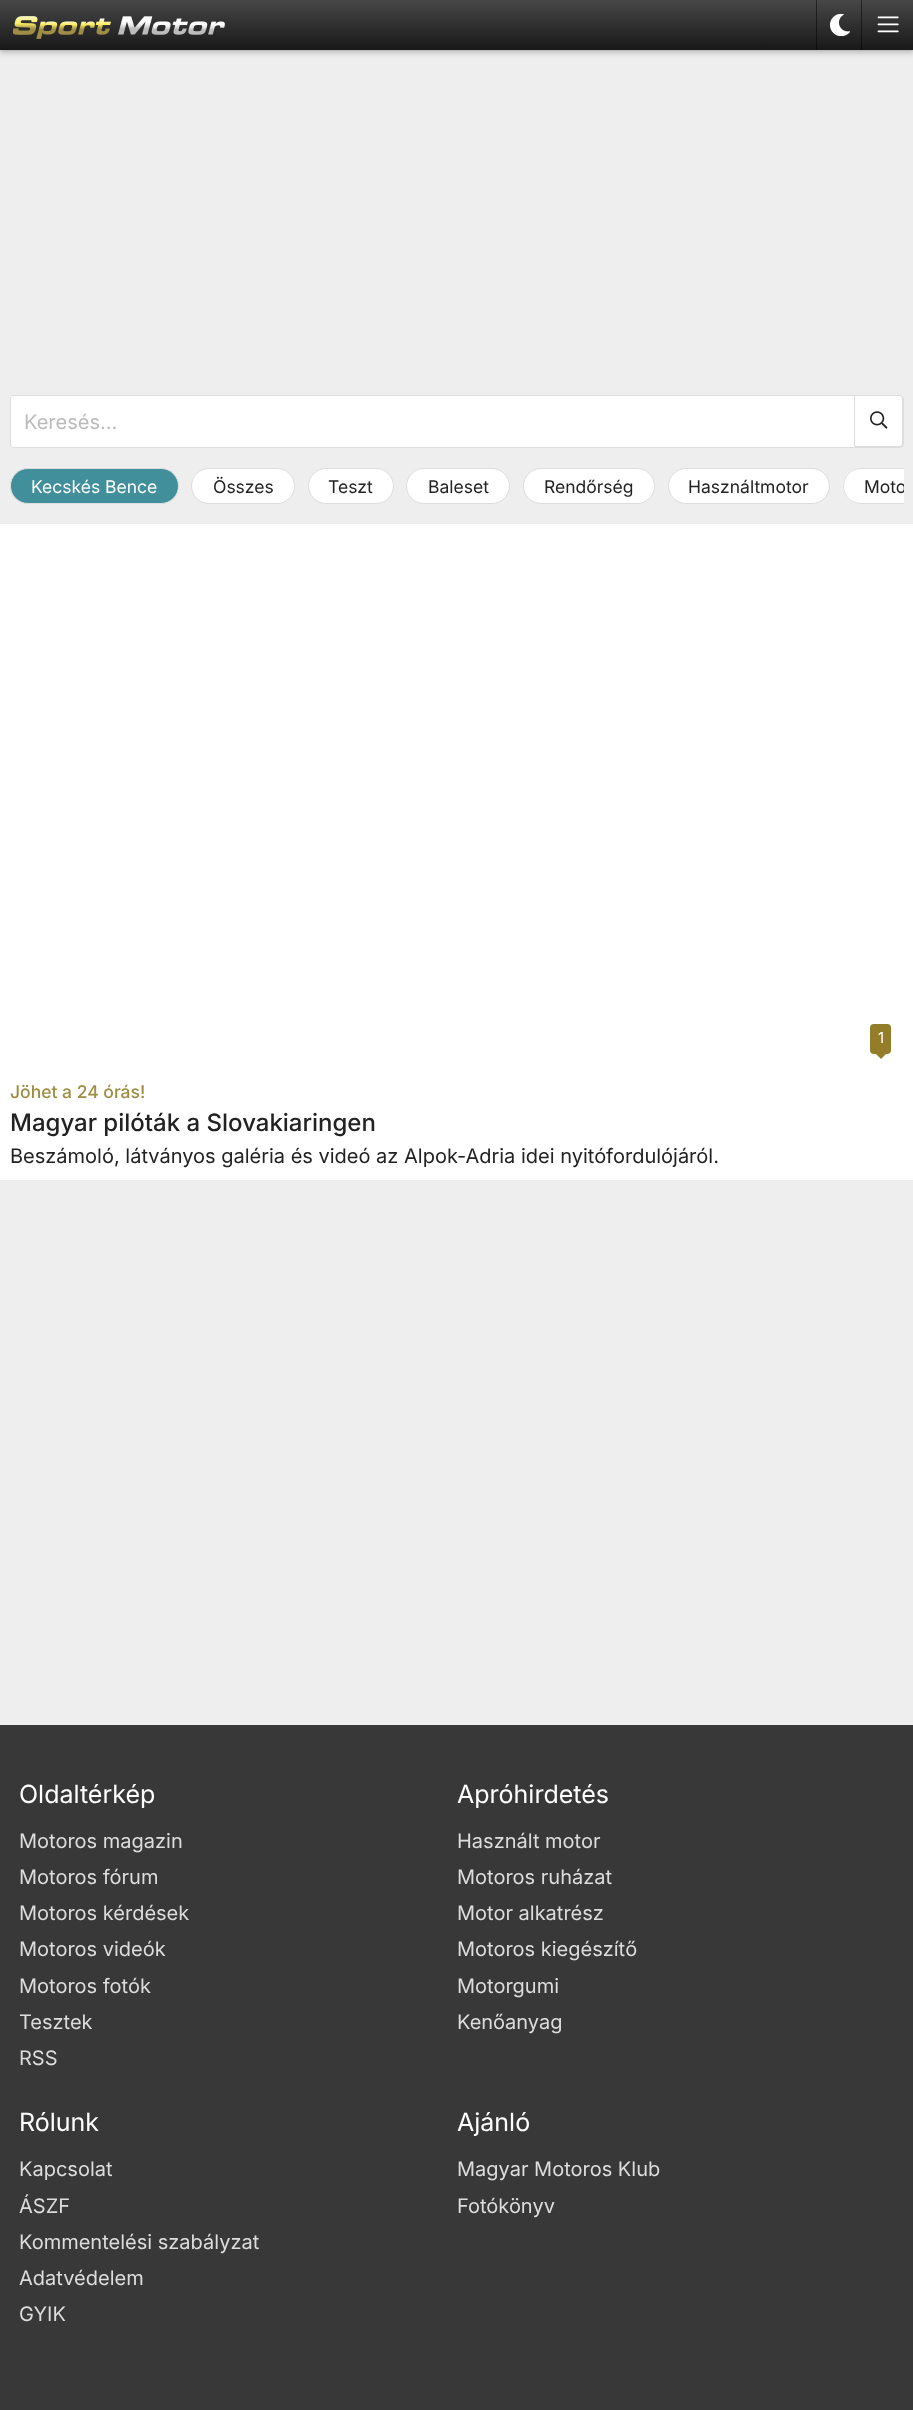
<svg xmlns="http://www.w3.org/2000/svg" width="913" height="2410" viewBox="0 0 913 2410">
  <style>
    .t1 { font: 20px Inter; fill: #bbb; }
    .t2 { font: 17.5px Inter; fill: #fff; }
    .t3 { font: 17.5px Inter; fill: #222; }
    .t4 { font: 15px Inter; fill: #fff; }
    .t5 { font: 500 17.5px Inter; fill: #9f8d44; }
    .t6 { font: 500 24px Inter; fill: #222; }
    .t7 { font: 20px Inter; fill: #222; }
    .t8 { font: 25px Inter; fill: #fff; }
    .t9 { font: 20px Inter; fill: #ddd; }
  </style>
  <defs>
    <linearGradient id="g1" gradientUnits="userSpaceOnUse" x1="457" y1="0" x2="457" y2="50"><stop offset="0" stop-color="#474747"/><stop offset="1" stop-color="#181818"/></linearGradient>
    <linearGradient id="g2" gradientUnits="userSpaceOnUse" x1="457" y1="0" x2="457" y2="50"><stop offset="0" stop-color="#242424"/><stop offset="1" stop-color="#0c0c0c"/></linearGradient>
    <clipPath id="clip1"><rect x="10" y="468" width="894" height="36"/></clipPath>
  </defs>
  <rect width="100%" height="100%" fill="#eee"/>
  <rect x="0" y="3" width="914" height="50" fill="#00000033" filter="blur(2.5px)"/>
  <rect x="0" y="0" width="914" height="50" fill="#0000001a" filter="blur(1px)"/>
  <rect x="0" y="0" width="913" height="50" fill="url(#g1)"/>
  <rect x="861" y="0" width="1" height="50" fill="url(#g2)"/>
  <rect x="816" y="0" width="1" height="50" fill="url(#g2)"/>
  <image x="13" y="16" width="212" height="23" href="images/1.png"/>
  <image x="830" y="14" width="20" height="22" href="images/2.png"/>
  <image x="877" y="16" width="22" height="17" href="images/3.png"/>
  <path d="M14 395.5H854.5V447.5H14C12 447.5 10.5 446 10.5 444V399C10.5 397 12 395.5 14 395.5Z" fill="#fff" stroke="#ddd"/>
  <text x="24" y="429" class="t1">Keresés...</text>
  <path d="M855 395H900C902 395 904 397 904 399V444C904 446 902 448 900 448H855Z" fill="#fff"/>
  <path d="M855 395H900C902 395 904 397 904 399V444C904 446 902 448 900 448H855ZM855 396H900C901 396 902 397 902 399V444C902 445 901 446 900 446H855Z" fill="#ddd" fill-rule="evenodd"/>
  <image x="870" y="411" width="18" height="18" href="images/4.png"/>
  <rect x="10.5" y="468.5" width="168" height="35" rx="17.5" fill="#428f9c" stroke="#ddd"/>
  <text x="31" y="493" class="t2">Kecskés Bence</text>
  <rect x="191.5" y="468.5" width="103" height="35" rx="17.5" fill="#fff" stroke="#ddd"/>
  <text x="213" y="493" class="t3">Összes</text>
  <rect x="308.5" y="468.5" width="85" height="35" rx="17.5" fill="#fff" stroke="#ddd"/>
  <text x="328" y="493" class="t3">Teszt</text>
  <rect x="406.5" y="468.5" width="103" height="35" rx="17.5" fill="#fff" stroke="#ddd"/>
  <text x="428" y="493" class="t3">Baleset</text>
  <rect x="523.5" y="468.5" width="131" height="35" rx="17.5" fill="#fff" stroke="#ddd"/>
  <text x="544" y="493" class="t3">Rendőrség</text>
  <rect x="668.5" y="468.5" width="161" height="35" rx="17.5" fill="#fff" stroke="#ddd"/>
  <text x="688" y="493" class="t3">Használtmotor</text>
  <path d="M861 468H904V504H861C851 504 843 496 843 486C843 476 851 468 861 468Z" fill="#fff"/>
  <g clip-path="url(#clip1)">
    <rect x="843.5" y="468.5" width="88" height="35" rx="17.5" fill="none" stroke="#ddd"/>
    <text x="864" y="493" class="t3">Moto</text>
  </g>
  <rect x="0" y="524" width="913" height="656" fill="#fff"/>
  <rect x="870" y="1024" width="21" height="30" rx="4" fill="#947d28"/>
  <text x="878" y="1043" class="t4">1</text>
  <path d="M876 1054H886L881 1059Z" fill="#947d28"/>
  <text x="10" y="1098" class="t5">Jöhet a 24 órás!</text>
  <text x="10" y="1131" class="t6">Magyar pilóták a Slovakiaringen</text>
  <text x="10" y="1163" class="t7">Beszámoló, látványos galéria és videó az Alpok-Adria idei nyitófordulójáról.</text>
  <rect x="0" y="1725" width="913" height="685" fill="#383838"/>
  <text x="19" y="1803" class="t8">Oldaltérkép</text>
  <text x="19" y="1848" class="t9">Motoros magazin</text>
  <text x="19" y="1884" class="t9">Motoros fórum</text>
  <text x="19" y="1920" class="t9">Motoros kérdések</text>
  <text x="19" y="1956" class="t9">Motoros videók</text>
  <text x="19" y="1993" class="t9">Motoros fotók</text>
  <text x="19" y="2029" class="t9">Tesztek</text>
  <text x="19" y="2065" class="t9">RSS</text>
  <text x="457" y="1803" class="t8">Apróhirdetés</text>
  <text x="457" y="1848" class="t9">Használt motor</text>
  <text x="457" y="1884" class="t9">Motoros ruházat</text>
  <text x="457" y="1920" class="t9">Motor alkatrész</text>
  <text x="457" y="1956" class="t9">Motoros kiegészítő</text>
  <text x="457" y="1993" class="t9">Motorgumi</text>
  <text x="457" y="2029" class="t9">Kenőanyag</text>
  <text x="19" y="2131" class="t8">Rólunk</text>
  <text x="19" y="2176" class="t9">Kapcsolat</text>
  <text x="19" y="2213" class="t9">ÁSZF</text>
  <text x="19" y="2249" class="t9">Kommentelési szabályzat</text>
  <text x="19" y="2285" class="t9">Adatvédelem</text>
  <text x="19" y="2321" class="t9">GYIK</text>
  <text x="457" y="2131" class="t8">Ajánló</text>
  <text x="457" y="2176" class="t9">Magyar Motoros Klub</text>
  <text x="457" y="2213" class="t9">Fotókönyv</text>
</svg>
